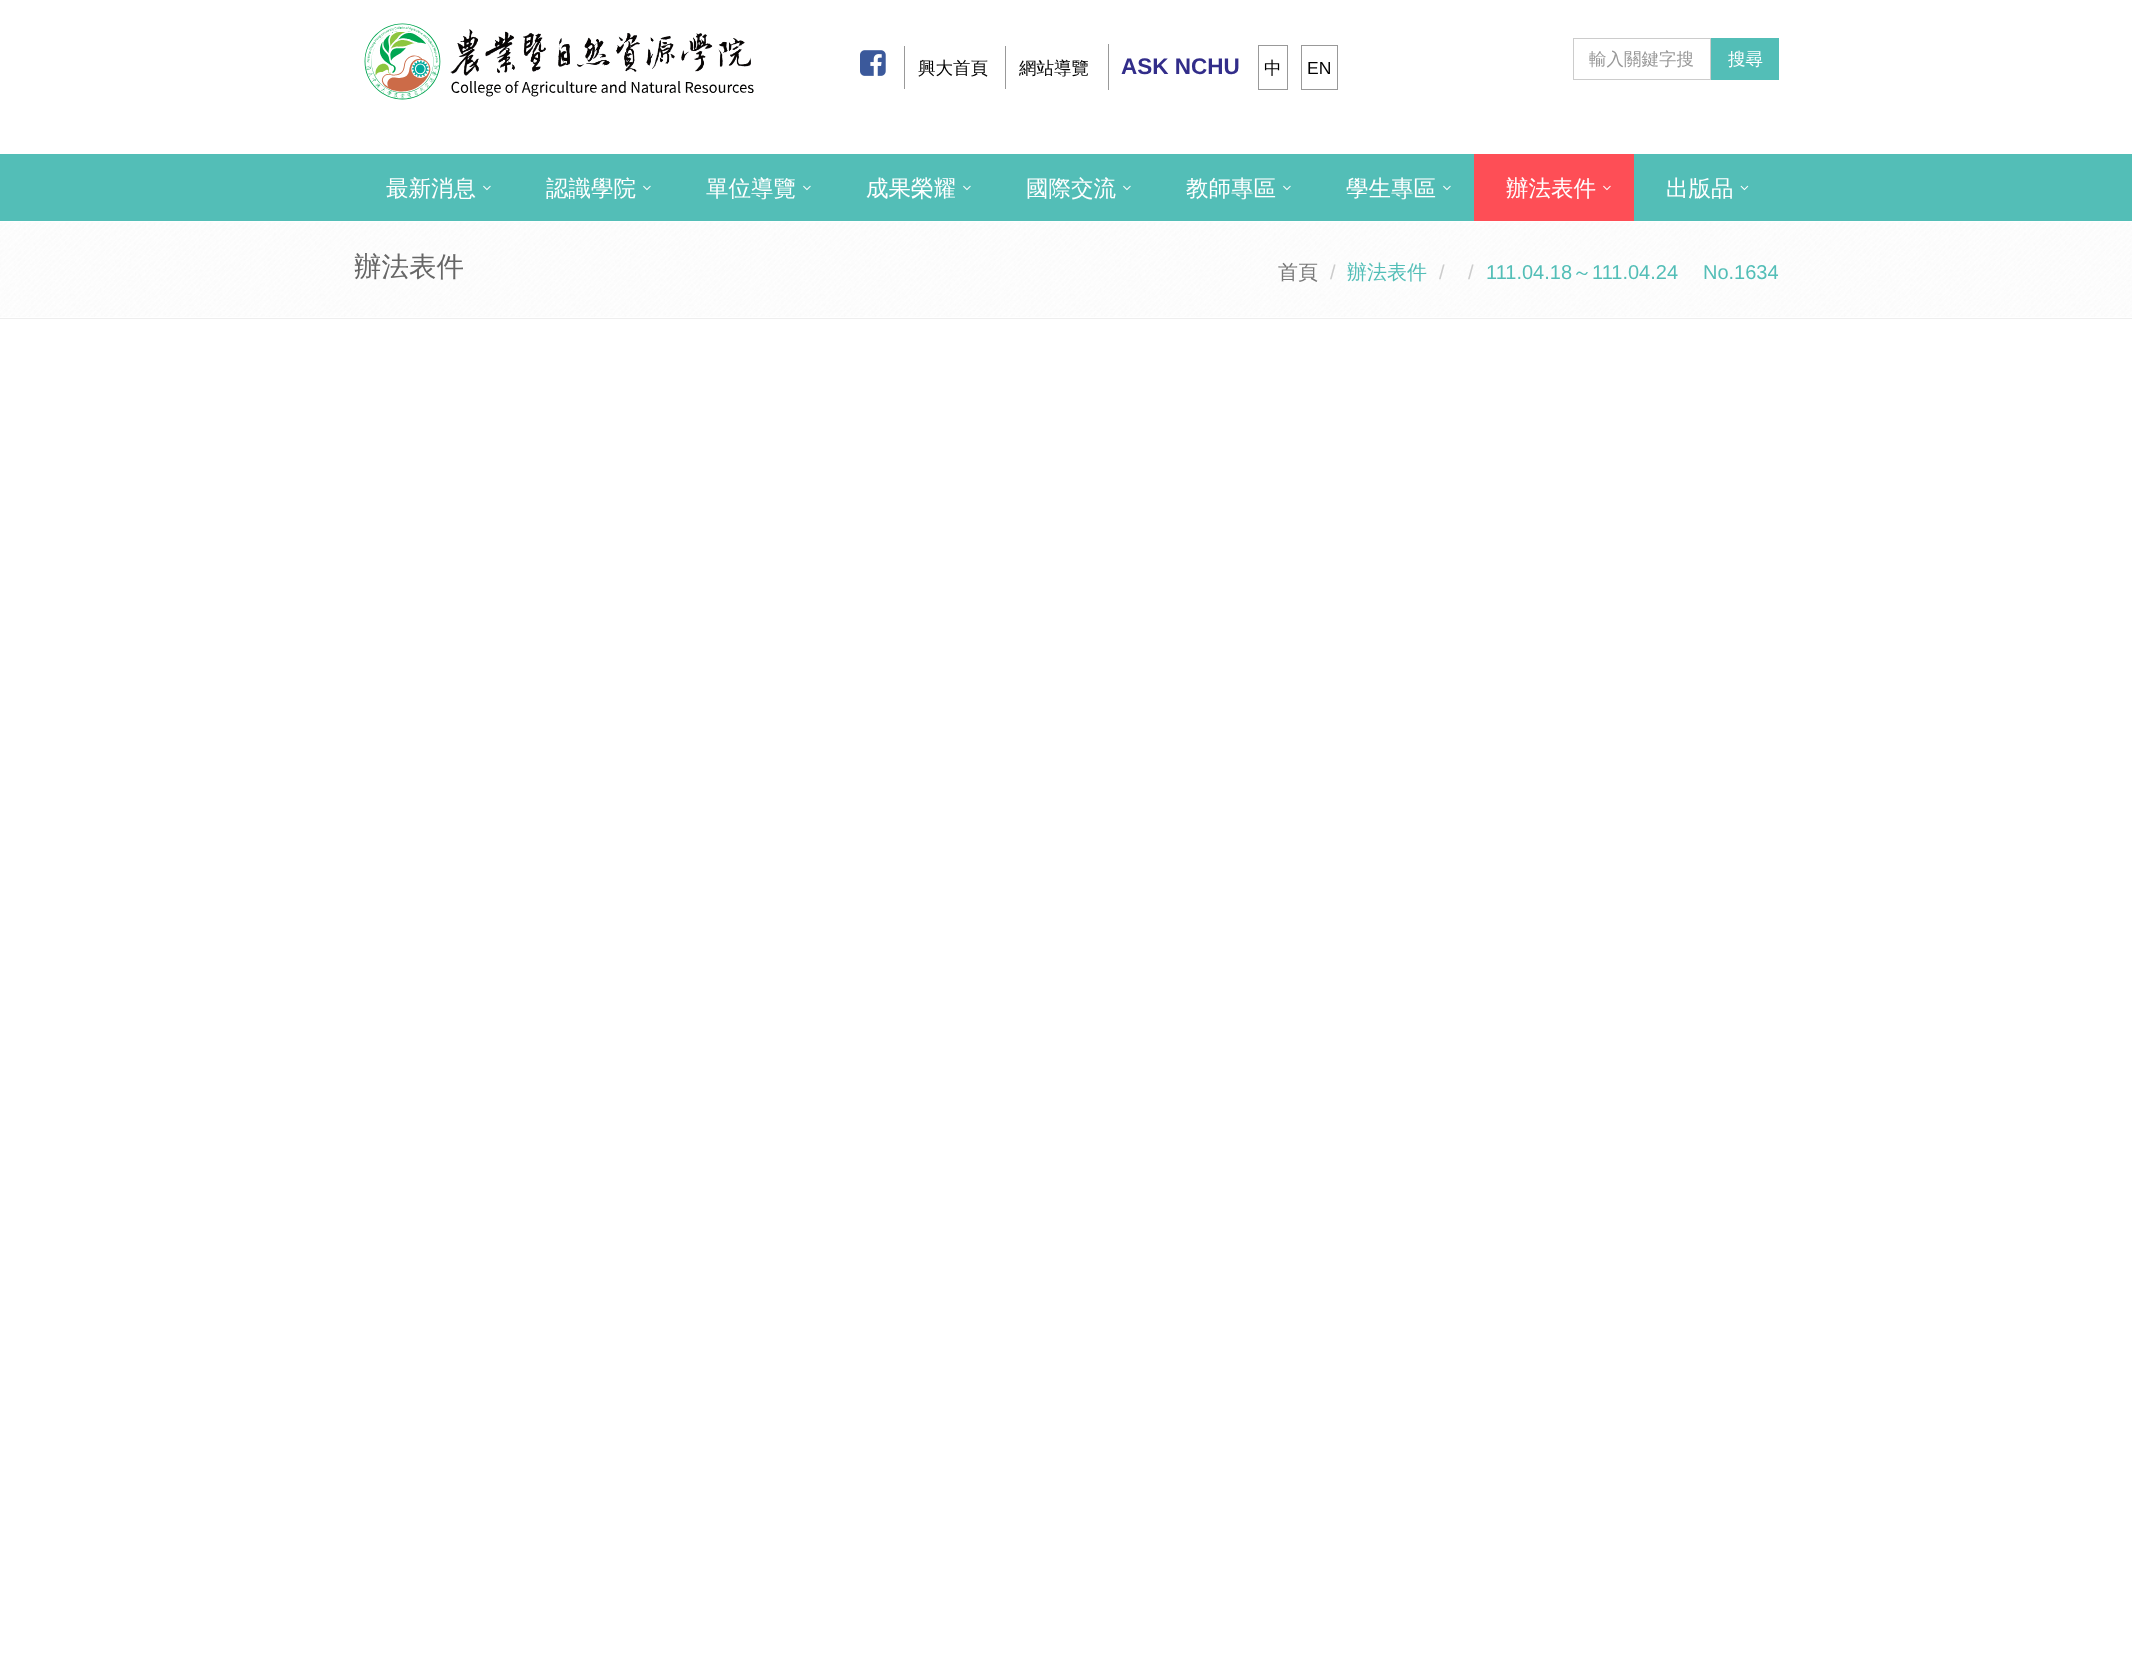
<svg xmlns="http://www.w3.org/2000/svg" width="2132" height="1660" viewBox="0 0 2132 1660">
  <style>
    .t1 { font: 500 17.5px WenQuanYi Zen Hei; fill: #000; }
    .t2 { font: bold 22.5px Liberation Sans; fill: #322d8a; }
    .t3 { font: 17.5px Liberation Sans; fill: #000; }
    .t4 { font: 500 17.5px WenQuanYi Zen Hei; fill: #999; }
    .t5 { font: 500 17.5px WenQuanYi Zen Hei; fill: #fff; }
    .t6 { font: 500 22.5px WenQuanYi Zen Hei; fill: #fff; }
    .t7 { font: 500 27.5px WenQuanYi Zen Hei; fill: #666; }
    .t8 { font: 500 20px WenQuanYi Zen Hei; fill: #777; }
    .t9 { font: 20px Liberation Sans; fill: #ccc; }
    .t10 { font: 500 20px WenQuanYi Zen Hei; fill: #53beb7; }
    .t11 { font: 20px Liberation Sans; fill: #53beb7; }
  </style>
  <rect width="100%" height="100%" fill="#fff"/>
  <image x="364" y="23" width="390" height="77" href="images/1.png"/>
  <image x="860" y="50" width="26" height="26" href="images/2.png"/>
  <rect x="904" y="46" width="1" height="43" fill="#999"/>
  <text x="918" y="74" class="t1">興大首頁</text>
  <rect x="1005" y="46" width="1" height="43" fill="#999"/>
  <text x="1019" y="74" class="t1">網站導覽</text>
  <rect x="1108" y="44" width="1" height="46" fill="#999"/>
  <text x="1121" y="74" class="t2">ASK NCHU</text>
  <rect x="1258.5" y="45.5" width="29" height="44" fill="none" stroke="#999"/>
  <text x="1264" y="74" class="t1">中</text>
  <rect x="1301.5" y="45.5" width="36" height="44" fill="none" stroke="#999"/>
  <text x="1307" y="74" class="t3">EN</text>
  <rect x="1573.5" y="38.5" width="137" height="41" fill="none" stroke="#ccc"/>
  <text x="1589" y="65" class="t4">輸入關鍵字搜</text>
  <rect x="1711" y="38" width="68" height="42" fill="#53beb7"/>
  <text x="1728" y="65" class="t5">搜尋</text>
  <rect x="0" y="154" width="2132" height="67" fill="#53beb7"/>
  <text x="386" y="196" class="t6">最新消息</text>
  <image x="483" y="185" width="8" height="6" href="images/3.png"/>
  <text x="546" y="196" class="t6">認識學院</text>
  <image x="643" y="185" width="8" height="6" href="images/3.png"/>
  <text x="706" y="196" class="t6">單位導覽</text>
  <image x="803" y="185" width="8" height="6" href="images/3.png"/>
  <text x="866" y="196" class="t6">成果榮耀</text>
  <image x="963" y="185" width="8" height="6" href="images/3.png"/>
  <text x="1026" y="196" class="t6">國際交流</text>
  <image x="1123" y="185" width="8" height="6" href="images/3.png"/>
  <text x="1186" y="196" class="t6">教師專區</text>
  <image x="1283" y="185" width="8" height="6" href="images/3.png"/>
  <text x="1346" y="196" class="t6">學生專區</text>
  <image x="1443" y="185" width="8" height="6" href="images/3.png"/>
  <rect x="1474" y="154" width="160" height="67" fill="#fe4e56"/>
  <text x="1506" y="196" class="t6">辦法表件</text>
  <image x="1603" y="185" width="8" height="6" href="images/4.png"/>
  <text x="1666" y="196" class="t6">出版品</text>
  <image x="1740" y="185" width="9" height="6" href="images/5.png"/>
  <image x="0" y="222" width="2132" height="95" href="images/6.png"/>
  <rect x="0" y="318" width="2132" height="1" fill="#eee"/>
  <text x="354" y="276" class="t7">辦法表件</text>
  <text x="1278" y="279" class="t8">首頁</text>
  <text x="1330" y="279" class="t9">/</text>
  <text x="1347" y="279" class="t10">辦法表件</text>
  <text x="1439" y="279" class="t9">/</text>
  <text x="1468" y="279" class="t9">/</text>
  <text x="1486" y="279" class="t11">111.04.18</text>
  <text x="1572" y="279" class="t10">～</text>
  <text x="1592" y="279" class="t11">111.04.24</text>
  <text x="1703" y="279" class="t11">No.1634</text>
</svg>
